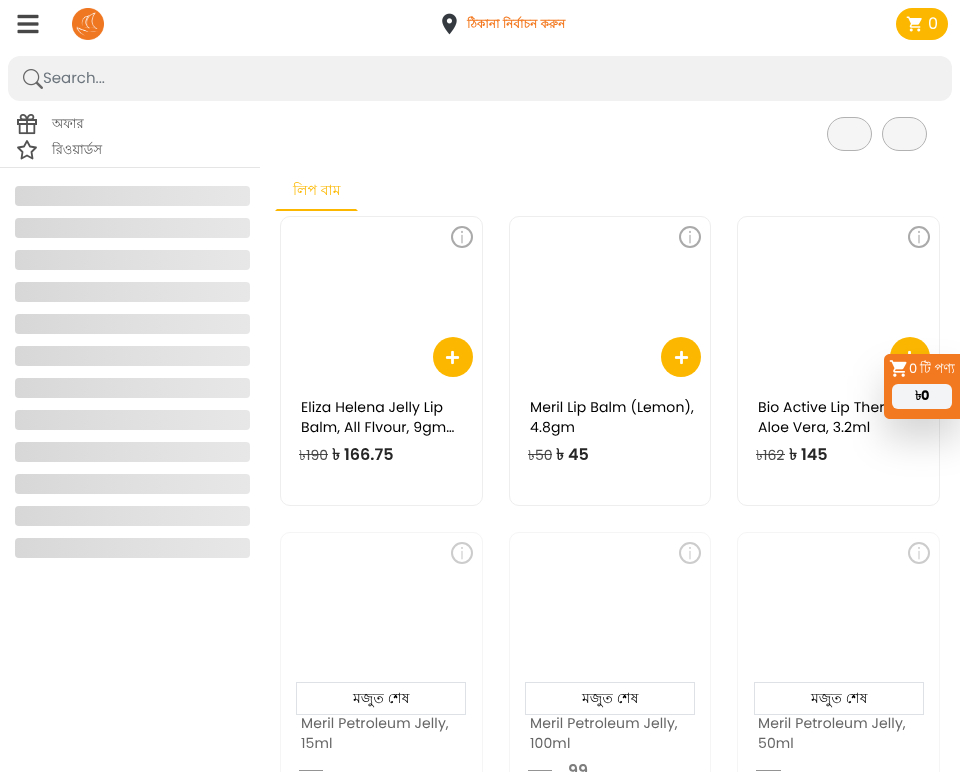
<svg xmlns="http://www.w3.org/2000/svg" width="960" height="772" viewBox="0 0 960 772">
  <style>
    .t1 { font: bold 12px Lohit Bengali; fill: #f37920; }
    .t2 { font: 16px Poppins; fill: #fff; }
    .t3 { font: 15px Poppins; fill: #6c757d; }
    .t4 { font: 13px Lohit Bengali; fill: #565656; }
    .t5 { font: 14px Lohit Bengali; fill: #fcb800; }
    .t6 { font: 14px Poppins; letter-spacing: 0.1px; fill: #000; }
    .t7 { font: 14px Lohit Bengali; fill: #4d4c4c; }
    .t8 { font: 14px Poppins; fill: #4d4c4c; }
    .t9 { font: bold 16px Lohit Bengali; fill: #262626; }
    .t10 { font: 600 16px Poppins; fill: #262626; }
    .t11 { font: 14px Lohit Bengali; fill: #000; }
    .t12 { font: 14px Poppins; letter-spacing: 0.1px; fill: #666; }
    .t13 { font: 600 16px Poppins; fill: #7d7d7d; }
    .t14 { font: 13px Poppins; fill: #fff; }
    .t15 { font: 13px Lohit Bengali; fill: #fff; }
    .t16 { font: bold 13px Lohit Bengali; fill: #000; }
    .t17 { font: bold 13px Poppins; fill: #000; }
  </style>
  <defs>
    <linearGradient id="g1" gradientUnits="userSpaceOnUse" x1="-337" y1="196" x2="603" y2="196"><stop offset="0.25" stop-color="#bebebe" stop-opacity="0.2"/><stop offset="0.37" stop-color="#818181" stop-opacity="0.24"/><stop offset="0.63" stop-color="#bebebe" stop-opacity="0.2"/></linearGradient>
    <linearGradient id="g2" gradientUnits="userSpaceOnUse" x1="-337" y1="228" x2="603" y2="228"><stop offset="0.25" stop-color="#bebebe" stop-opacity="0.2"/><stop offset="0.37" stop-color="#818181" stop-opacity="0.24"/><stop offset="0.63" stop-color="#bebebe" stop-opacity="0.2"/></linearGradient>
    <linearGradient id="g3" gradientUnits="userSpaceOnUse" x1="-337" y1="260" x2="603" y2="260"><stop offset="0.25" stop-color="#bebebe" stop-opacity="0.2"/><stop offset="0.37" stop-color="#818181" stop-opacity="0.24"/><stop offset="0.63" stop-color="#bebebe" stop-opacity="0.2"/></linearGradient>
    <linearGradient id="g4" gradientUnits="userSpaceOnUse" x1="-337" y1="292" x2="603" y2="292"><stop offset="0.25" stop-color="#bebebe" stop-opacity="0.2"/><stop offset="0.37" stop-color="#818181" stop-opacity="0.24"/><stop offset="0.63" stop-color="#bebebe" stop-opacity="0.2"/></linearGradient>
    <linearGradient id="g5" gradientUnits="userSpaceOnUse" x1="-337" y1="324" x2="603" y2="324"><stop offset="0.25" stop-color="#bebebe" stop-opacity="0.2"/><stop offset="0.37" stop-color="#818181" stop-opacity="0.24"/><stop offset="0.63" stop-color="#bebebe" stop-opacity="0.2"/></linearGradient>
    <linearGradient id="g6" gradientUnits="userSpaceOnUse" x1="-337" y1="356" x2="603" y2="356"><stop offset="0.25" stop-color="#bebebe" stop-opacity="0.2"/><stop offset="0.37" stop-color="#818181" stop-opacity="0.24"/><stop offset="0.63" stop-color="#bebebe" stop-opacity="0.2"/></linearGradient>
    <linearGradient id="g7" gradientUnits="userSpaceOnUse" x1="-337" y1="388" x2="603" y2="388"><stop offset="0.25" stop-color="#bebebe" stop-opacity="0.2"/><stop offset="0.37" stop-color="#818181" stop-opacity="0.24"/><stop offset="0.63" stop-color="#bebebe" stop-opacity="0.2"/></linearGradient>
    <linearGradient id="g8" gradientUnits="userSpaceOnUse" x1="-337" y1="420" x2="603" y2="420"><stop offset="0.25" stop-color="#bebebe" stop-opacity="0.2"/><stop offset="0.37" stop-color="#818181" stop-opacity="0.24"/><stop offset="0.63" stop-color="#bebebe" stop-opacity="0.2"/></linearGradient>
    <linearGradient id="g9" gradientUnits="userSpaceOnUse" x1="-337" y1="452" x2="603" y2="452"><stop offset="0.25" stop-color="#bebebe" stop-opacity="0.2"/><stop offset="0.37" stop-color="#818181" stop-opacity="0.24"/><stop offset="0.63" stop-color="#bebebe" stop-opacity="0.2"/></linearGradient>
    <linearGradient id="g10" gradientUnits="userSpaceOnUse" x1="-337" y1="484" x2="603" y2="484"><stop offset="0.25" stop-color="#bebebe" stop-opacity="0.2"/><stop offset="0.37" stop-color="#818181" stop-opacity="0.24"/><stop offset="0.63" stop-color="#bebebe" stop-opacity="0.2"/></linearGradient>
    <linearGradient id="g11" gradientUnits="userSpaceOnUse" x1="-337" y1="516" x2="603" y2="516"><stop offset="0.25" stop-color="#bebebe" stop-opacity="0.2"/><stop offset="0.37" stop-color="#818181" stop-opacity="0.24"/><stop offset="0.63" stop-color="#bebebe" stop-opacity="0.2"/></linearGradient>
    <linearGradient id="g12" gradientUnits="userSpaceOnUse" x1="-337" y1="548" x2="603" y2="548"><stop offset="0.25" stop-color="#bebebe" stop-opacity="0.2"/><stop offset="0.37" stop-color="#818181" stop-opacity="0.24"/><stop offset="0.63" stop-color="#bebebe" stop-opacity="0.2"/></linearGradient>
  </defs>
  <rect width="100%" height="100%" fill="#fff"/>
  <image x="17" y="14" width="22" height="20" href="images/1.png"/>
  <image x="72" y="8" width="32" height="32" href="images/2.png"/>
  <image x="442" y="13" width="15" height="22" href="images/3.png"/>
  <text x="467" y="28" class="t1">ঠিকানা নির্বাচন করুন</text>
  <rect x="896" y="8" width="52" height="32" rx="16" fill="#fcb800"/>
  <image x="906" y="16" width="16" height="16" href="images/4.png"/>
  <text x="928" y="29" class="t2">0</text>
  <rect x="8" y="56" width="944" height="45" rx="12" fill="#f1f1f1"/>
  <image x="23" y="69" width="20" height="20" href="images/5.png"/>
  <text x="43" y="83" class="t3">Search...</text>
  <rect x="0" y="167" width="260" height="1" fill="#e5e5e5"/>
  <image x="17" y="114" width="20" height="21" href="images/6.png"/>
  <text x="52" y="128" class="t4">অফার</text>
  <path d="M27 141L30 146.5L36 147.5L31.5 152L32.5 158.5L27 155.5L21.5 158.5L22.5 152L18 147.5L24 146.5Z" fill="none" stroke="#535353" stroke-width="1.8" stroke-linecap="round" stroke-linejoin="round"/>
  <text x="52" y="154" class="t4">রিওয়ার্ডস</text>
  <rect x="15" y="186" width="235" height="20" rx="4" fill="#f2f2f2"/>
  <rect x="15" y="186" width="235" height="20" rx="4" fill="url(#g1)"/>
  <rect x="15" y="218" width="235" height="20" rx="4" fill="#f2f2f2"/>
  <rect x="15" y="218" width="235" height="20" rx="4" fill="url(#g2)"/>
  <rect x="15" y="250" width="235" height="20" rx="4" fill="#f2f2f2"/>
  <rect x="15" y="250" width="235" height="20" rx="4" fill="url(#g3)"/>
  <rect x="15" y="282" width="235" height="20" rx="4" fill="#f2f2f2"/>
  <rect x="15" y="282" width="235" height="20" rx="4" fill="url(#g4)"/>
  <rect x="15" y="314" width="235" height="20" rx="4" fill="#f2f2f2"/>
  <rect x="15" y="314" width="235" height="20" rx="4" fill="url(#g5)"/>
  <rect x="15" y="346" width="235" height="20" rx="4" fill="#f2f2f2"/>
  <rect x="15" y="346" width="235" height="20" rx="4" fill="url(#g6)"/>
  <rect x="15" y="378" width="235" height="20" rx="4" fill="#f2f2f2"/>
  <rect x="15" y="378" width="235" height="20" rx="4" fill="url(#g7)"/>
  <rect x="15" y="410" width="235" height="20" rx="4" fill="#f2f2f2"/>
  <rect x="15" y="410" width="235" height="20" rx="4" fill="url(#g8)"/>
  <rect x="15" y="442" width="235" height="20" rx="4" fill="#f2f2f2"/>
  <rect x="15" y="442" width="235" height="20" rx="4" fill="url(#g9)"/>
  <rect x="15" y="474" width="235" height="20" rx="4" fill="#f2f2f2"/>
  <rect x="15" y="474" width="235" height="20" rx="4" fill="url(#g10)"/>
  <rect x="15" y="506" width="235" height="20" rx="4" fill="#f2f2f2"/>
  <rect x="15" y="506" width="235" height="20" rx="4" fill="url(#g11)"/>
  <rect x="15" y="538" width="235" height="20" rx="4" fill="#f2f2f2"/>
  <rect x="15" y="538" width="235" height="20" rx="4" fill="url(#g12)"/>
  <rect x="827.5" y="117.5" width="44" height="33" rx="16.5" fill="#f5f5f5" stroke="#b2b2b2"/>
  <rect x="882.5" y="117.5" width="44" height="33" rx="16.5" fill="#f5f5f5" stroke="#b2b2b2"/>
  <path d="M358 211L356 209H277L275 211Z" fill="#fcb800"/>
  <text x="293" y="195" class="t5">লিপ বাম</text>
  <rect x="280.5" y="216.5" width="202" height="289" rx="9.5" fill="none" stroke="#eee"/>
  <circle cx="453" cy="357" r="20" fill="#fcb800"/>
  <image x="445" y="350" width="15" height="15" href="images/7.png"/>
  <circle cx="462" cy="237" r="10" fill="none" stroke="#aaa" stroke-width="2"/>
  <image x="461" y="230" width="2" height="14" href="images/8.png"/>
  <text x="301" y="412" class="t6">Eliza Helena Jelly Lip</text>
  <text x="301" y="432" class="t6">Balm, All Flvour, 9gm…</text>
  <text x="299" y="460" class="t7">৳</text>
  <text x="306" y="460" class="t8">190</text>
  <rect x="299" y="454" width="29" height="1" fill="#3b3a3ae8"/>
  <text x="332" y="460" class="t9">৳</text>
  <text x="344" y="460" class="t10">166.75</text>
  <rect x="509.5" y="216.5" width="201" height="289" rx="9.5" fill="none" stroke="#eee"/>
  <circle cx="681" cy="357" r="20" fill="#fcb800"/>
  <image x="674" y="350" width="15" height="15" href="images/7.png"/>
  <circle cx="690" cy="237" r="10" fill="none" stroke="#aaa" stroke-width="2"/>
  <image x="689" y="230" width="2" height="14" href="images/8.png"/>
  <text x="530" y="412" class="t6">Meril Lip Balm (Lemon),</text>
  <text x="530" y="432" class="t6">4.8gm</text>
  <text x="528" y="460" class="t7">৳</text>
  <text x="535" y="460" class="t8">50</text>
  <rect x="528" y="454" width="24" height="1" fill="#3b3a3ae8"/>
  <text x="556" y="460" class="t9">৳</text>
  <text x="568" y="460" class="t10">45</text>
  <rect x="737.5" y="216.5" width="202" height="289" rx="9.5" fill="none" stroke="#eee"/>
  <circle cx="910" cy="357" r="20" fill="#fcb800"/>
  <image x="908" y="350" width="3" height="4" href="images/9.png"/>
  <circle cx="919" cy="237" r="10" fill="none" stroke="#aaa" stroke-width="2"/>
  <image x="918" y="230" width="2" height="14" href="images/8.png"/>
  <text x="758" y="412" class="t6">Bio Active Lip Ther</text>
  <text x="758" y="432" class="t6">Aloe Vera, 3.2ml</text>
  <text x="756" y="460" class="t7">৳</text>
  <text x="763" y="460" class="t8">162</text>
  <rect x="756" y="454" width="29" height="1" fill="#3b3a3ae8"/>
  <text x="789" y="460" class="t9">৳</text>
  <text x="801" y="460" class="t10">145</text>
  <rect x="280.5" y="532.5" width="202" height="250" rx="9.5" fill="none" stroke="#f5f5f5"/>
  <rect x="296.5" y="682.5" width="169" height="32" fill="none" stroke="#dee2e6"/>
  <text x="353" y="703" class="t11">মজুত শেষ</text>
  <circle cx="462" cy="553" r="10" fill="none" stroke="#ccc" stroke-width="2"/>
  <image x="461" y="547" width="2" height="13" href="images/10.png"/>
  <text x="301" y="728" class="t12">Meril Petroleum Jelly,</text>
  <text x="301" y="748" class="t12">15ml</text>
  <rect x="299" y="770" width="24" height="1" fill="#898989e8"/>
  <rect x="509.5" y="532.5" width="201" height="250" rx="9.5" fill="none" stroke="#f5f5f5"/>
  <rect x="525.5" y="682.5" width="169" height="32" fill="none" stroke="#dee2e6"/>
  <text x="582" y="703" class="t11">মজুত শেষ</text>
  <circle cx="690" cy="553" r="10" fill="none" stroke="#ccc" stroke-width="2"/>
  <image x="689" y="547" width="2" height="13" href="images/10.png"/>
  <text x="530" y="728" class="t12">Meril Petroleum Jelly,</text>
  <text x="530" y="748" class="t12">100ml</text>
  <rect x="528" y="770" width="24" height="1" fill="#898989e8"/>
  <text x="568" y="776" class="t13">99</text>
  <rect x="737.5" y="532.5" width="202" height="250" rx="9.5" fill="none" stroke="#f5f5f5"/>
  <rect x="754.5" y="682.5" width="169" height="32" fill="none" stroke="#dee2e6"/>
  <text x="811" y="703" class="t11">মজুত শেষ</text>
  <circle cx="919" cy="553" r="10" fill="none" stroke="#ccc" stroke-width="2"/>
  <image x="918" y="547" width="2" height="13" href="images/10.png"/>
  <text x="758" y="728" class="t12">Meril Petroleum Jelly,</text>
  <text x="758" y="748" class="t12">50ml</text>
  <rect x="756" y="770" width="25" height="1" fill="#898989e8"/>
  <rect x="884" y="375" width="76" height="65" rx="6" fill="#00000029" filter="blur(18px)"/>
  <path d="M890 354H960V419H890C886.5 419 884 416.5 884 413V360C884 356.5 886.5 354 890 354Z" fill="#f37920"/>
  <image x="889" y="360" width="18" height="17" href="images/11.png"/>
  <text x="909" y="373" class="t14">0</text>
  <text x="920" y="373" class="t15">টি পণ্য</text>
  <rect x="892" y="384" width="60" height="25" rx="6" fill="#f3f4f6"/>
  <text x="915" y="400" class="t16">৳</text>
  <text x="921" y="400" class="t17">0</text>
</svg>
